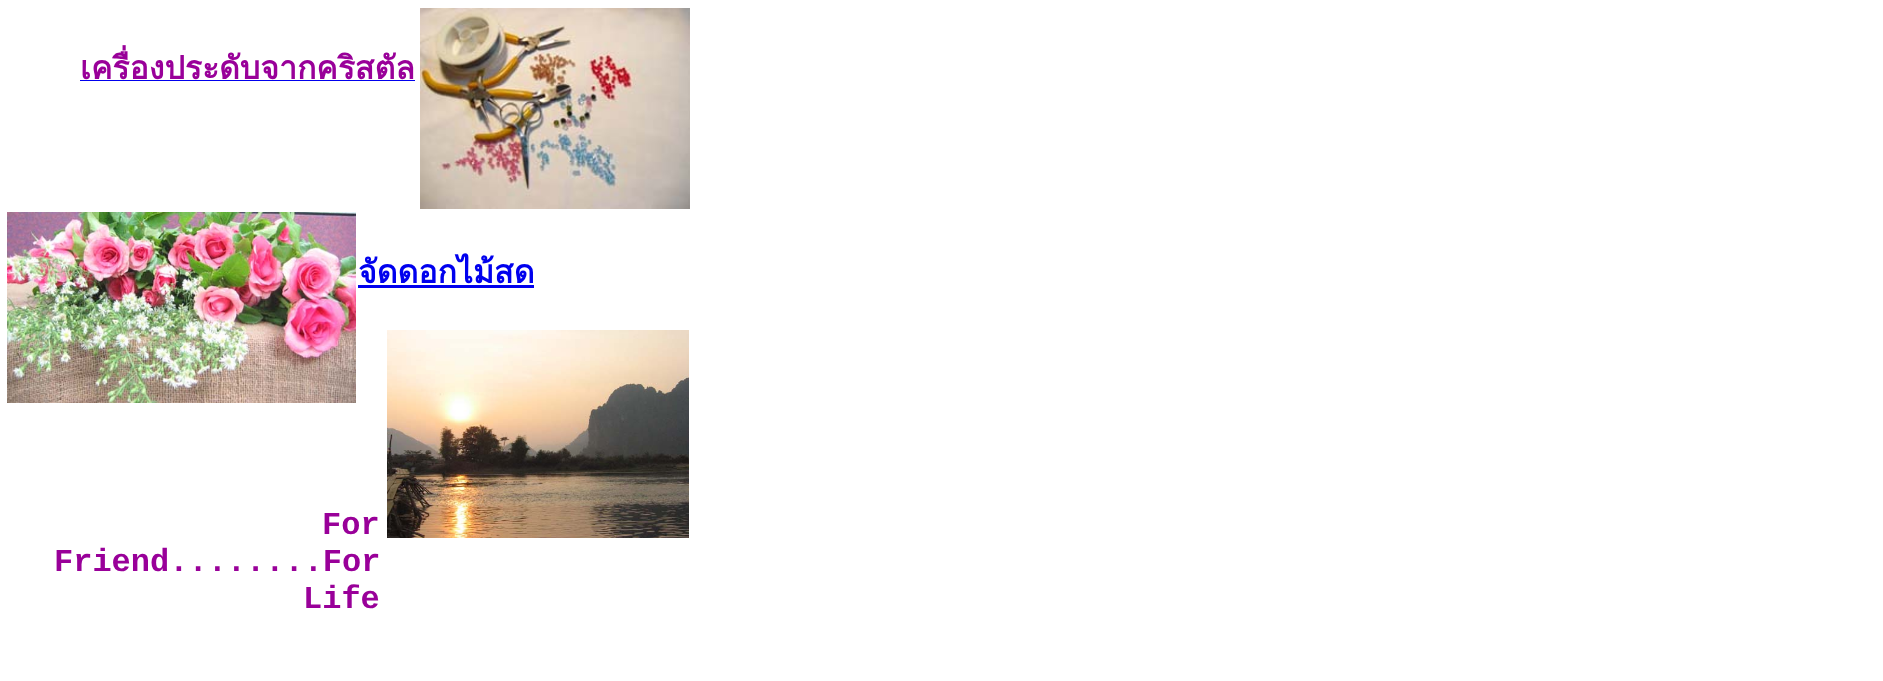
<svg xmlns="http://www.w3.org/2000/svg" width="1883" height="681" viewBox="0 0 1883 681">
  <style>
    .t1 { font: bold 32px Loma; fill: #909; }
    .t2 { font: bold 32px Loma; fill: #00e; }
    .t3 { font: bold 32px Liberation Mono; fill: #909; }
  </style>
  <rect width="100%" height="100%" fill="#fff"/>
  <text x="80" y="79" class="t1">เครื่องประดับจากคริสตัล</text>
  <rect x="80" y="80" width="335" height="1" fill="#00e"/>
  <image x="420" y="8" width="270" height="201" href="images/1.png"/>
  <text x="358" y="283" class="t2">จัดดอกไม้สด</text>
  <image x="7" y="212" width="349" height="191" href="images/2.png"/>
  <rect x="358" y="285" width="176" height="3" fill="#00e"/>
  <image x="387" y="330" width="302" height="208" href="images/3.png"/>
  <text x="322" y="534" class="t3">For</text>
  <text x="54" y="571" class="t3">Friend........For</text>
  <text x="303" y="608" class="t3">Life</text>
</svg>
